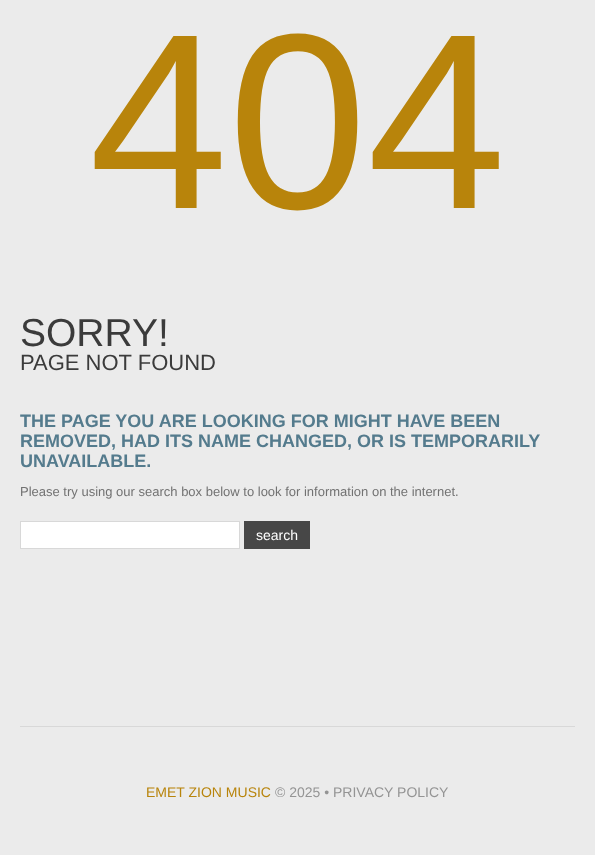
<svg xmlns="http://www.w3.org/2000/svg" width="595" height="855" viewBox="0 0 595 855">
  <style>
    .t1 { font: 250px Liberation Sans; fill: #b8840b; }
    .t2 { font: 39px Liberation Sans; fill: #3b3b3b; }
    .t3 { font: 22px Liberation Sans; fill: #3b3b3b; }
    .t4 { font: bold 18px Liberation Sans; fill: #547b8d; }
    .t5 { font: 13px Liberation Sans; fill: #727272; }
    .t6 { font: 14px Liberation Sans; fill: #fff; }
    .t7 { font: 14px Liberation Sans; fill: #b8840b; }
    .t8 { font: 14px Liberation Sans; fill: #949494; }
  </style>
  <rect width="100%" height="100%" fill="#ebebeb"/>
  <text x="89" y="208" class="t1">404</text>
  <text x="20" y="346" class="t2">SORRY!</text>
  <text x="20" y="370" class="t3">PAGE NOT FOUND</text>
  <text x="20" y="427" class="t4">THE PAGE YOU ARE LOOKING FOR MIGHT HAVE BEEN</text>
  <text x="20" y="447" class="t4">REMOVED, HAD ITS NAME CHANGED, OR IS TEMPORARILY</text>
  <text x="20" y="467" class="t4">UNAVAILABLE.</text>
  <text x="20" y="496" class="t5">Please try using our search box below to look for information on the internet.</text>
  <rect x="20.5" y="521.5" width="219" height="27" fill="#fff" stroke="#d8d8d8"/>
  <rect x="244" y="521" width="66" height="28" fill="#474747"/>
  <text x="256" y="540" class="t6">search</text>
  <rect x="20" y="726" width="555" height="1" fill="#d8d8d8"/>
  <text x="146" y="797" class="t7">EMET ZION MUSIC</text>
  <text x="275" y="797" class="t8">© 2025 • PRIVACY POLICY</text>
</svg>
